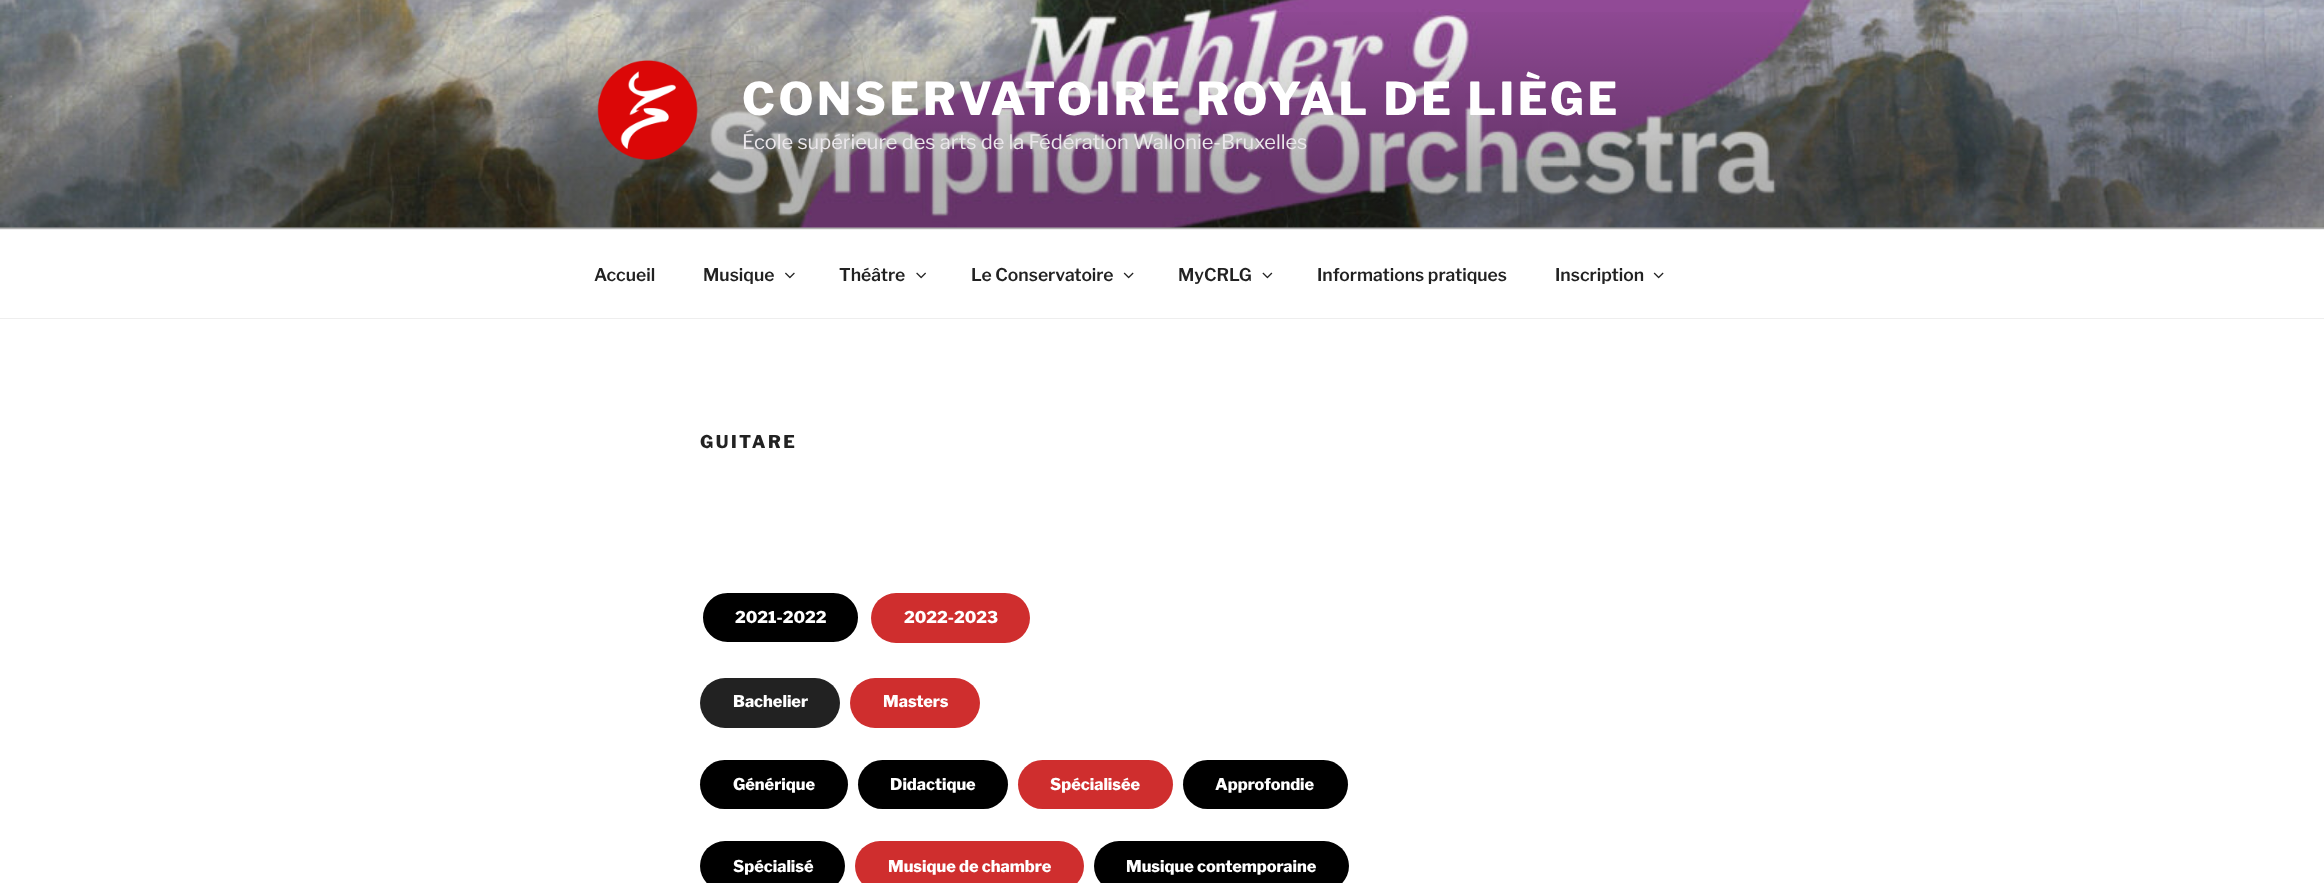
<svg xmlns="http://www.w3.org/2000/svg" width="2324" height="883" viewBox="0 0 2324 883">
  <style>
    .t1 { font: 800 45px Libre Franklin; letter-spacing: 3.6px; fill: #fff; }
    .t2 { font: 20px Libre Franklin; fill: #ebe7eb; }
    .t3 { font: 600 17.5px Libre Franklin; fill: #222; }
    .t4 { font: 800 17.5px Libre Franklin; letter-spacing: 2.5px; fill: #222; }
    .t5 { font: 800 16.25px Libre Franklin; fill: #fff; }
  </style>
  <defs>
    <linearGradient id="g1" gradientUnits="userSpaceOnUse" x1="1163" y1="0" x2="1163" y2="229"><stop offset="0" stop-color="#000" stop-opacity="0"/><stop offset="0.75" stop-color="#000" stop-opacity="0.3"/><stop offset="1" stop-color="#000" stop-opacity="0.3"/></linearGradient>
  </defs>
  <rect width="100%" height="100%" fill="#fff"/>
  <rect x="0" y="227" width="2324" height="2" fill="#fafafa"/>
  <image x="0" y="0" width="2324" height="228" href="images/1.png"/>
  <rect x="0" y="12" width="2324" height="217" fill="url(#g1)"/>
  <image x="597" y="60" width="101" height="100" href="images/2.png"/>
  <text x="742" y="115" class="t1">CONSERVATOIRE ROYAL DE LIÈGE</text>
  <text x="742" y="149" class="t2">École supérieure des arts de la Fédération Wallonie-Bruxelles</text>
  <rect x="0" y="229" width="2324" height="1" fill="#eee"/>
  <rect x="0" y="318" width="2324" height="1" fill="#eee"/>
  <text x="594" y="281" class="t3">Accueil</text>
  <text x="703" y="281" class="t3">Musique</text>
  <image x="785" y="272" width="10" height="7" href="images/3.png"/>
  <text x="839" y="281" class="t3">Théâtre</text>
  <image x="916" y="272" width="10" height="7" href="images/4.png"/>
  <text x="971" y="281" class="t3">Le Conservatoire</text>
  <image x="1123" y="272" width="11" height="7" href="images/5.png"/>
  <text x="1178" y="281" class="t3">MyCRLG</text>
  <image x="1262" y="272" width="11" height="7" href="images/6.png"/>
  <text x="1317" y="281" class="t3">Informations pratiques</text>
  <text x="1555" y="281" class="t3">Inscription</text>
  <image x="1653" y="272" width="11" height="7" href="images/5.png"/>
  <text x="700" y="448" class="t4">GUITARE</text>
  <rect x="701.5" y="591.5" width="158" height="52" rx="26" fill="#000" stroke="#fff" stroke-width="3"/>
  <text x="735" y="623" class="t5">2021-2022</text>
  <rect x="871" y="593" width="159" height="50" rx="25" fill="#cf2e2e"/>
  <text x="904" y="623" class="t5">2022-2023</text>
  <rect x="700" y="678" width="140" height="50" rx="25" fill="#222"/>
  <text x="733" y="707" class="t5">Bachelier</text>
  <rect x="850" y="678" width="130" height="50" rx="25" fill="#cf2e2e"/>
  <text x="883" y="707" class="t5">Masters</text>
  <rect x="700" y="760" width="148" height="49" rx="24.5" fill="#000"/>
  <text x="733" y="790" class="t5">Générique</text>
  <rect x="858" y="760" width="150" height="49" rx="24.5" fill="#000"/>
  <text x="890" y="790" class="t5">Didactique</text>
  <rect x="1018" y="760" width="155" height="49" rx="24.5" fill="#cf2e2e"/>
  <text x="1050" y="790" class="t5">Spécialisée</text>
  <rect x="1183" y="760" width="165" height="49" rx="24.5" fill="#000"/>
  <text x="1215" y="790" class="t5">Approfondie</text>
  <rect x="700" y="841" width="145" height="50" rx="25" fill="#000"/>
  <text x="733" y="872" class="t5">Spécialisé</text>
  <rect x="855" y="841" width="229" height="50" rx="25" fill="#cf2e2e"/>
  <text x="888" y="872" class="t5">Musique de chambre</text>
  <rect x="1094" y="841" width="255" height="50" rx="25" fill="#000"/>
  <text x="1126" y="872" class="t5">Musique contemporaine</text>
</svg>
